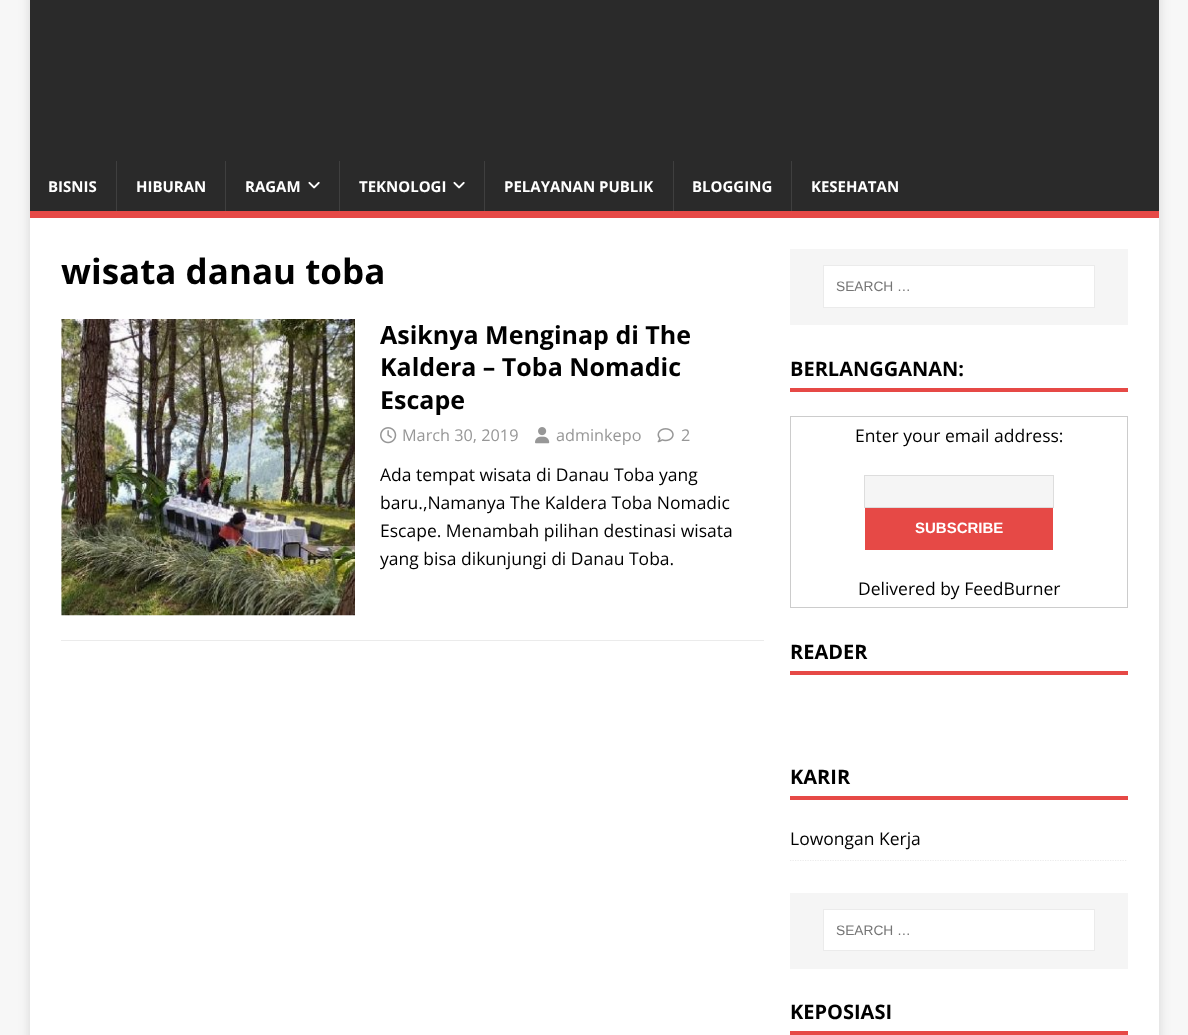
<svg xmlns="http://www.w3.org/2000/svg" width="1188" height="1035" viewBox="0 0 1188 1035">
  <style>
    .t1 { font: bold 15px Open Sans; fill: #fff; }
    .t2 { font: bold 35px Open Sans; fill: #000; }
    .t3 { font: bold 25px Open Sans; fill: #000; }
    .t4 { font: 16.25px Open Sans; fill: #979797; }
    .t5 { font: 17.5px Open Sans; fill: #000; }
    .t6 { font: 13.75px Liberation Sans; fill: #757575; }
    .t7 { font: bold 20px Open Sans; fill: #000; }
    .t8 { font: bold 15px Liberation Sans; fill: #fff; }
  </style>
  <defs>
    <clipPath id="clip1"><rect x="790" y="764" width="338" height="97"/></clipPath>
  </defs>
  <rect width="100%" height="100%" fill="#f7f7f7"/>
  <rect x="30" y="-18" width="1129" height="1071" fill="#3232322b" filter="blur(6px)"/>
  <rect x="30" y="0" width="1129" height="211" fill="#2a2a2a"/>
  <rect x="30" y="211" width="1129" height="7" fill="#e64946"/>
  <text x="48" y="192" class="t1">BISNIS</text>
  <rect x="116" y="161" width="1" height="50" fill="#3f3f3f"/>
  <text x="136" y="192" class="t1">HIBURAN</text>
  <rect x="225" y="161" width="1" height="50" fill="#3f3f3f"/>
  <text x="245" y="192" class="t1">RAGAM</text>
  <image x="308" y="181" width="12" height="8" href="images/1.png"/>
  <rect x="339" y="161" width="1" height="50" fill="#3f3f3f"/>
  <text x="359" y="192" class="t1">TEKNOLOGI</text>
  <image x="453" y="181" width="12" height="8" href="images/1.png"/>
  <rect x="484" y="161" width="1" height="50" fill="#3f3f3f"/>
  <text x="504" y="192" class="t1">PELAYANAN PUBLIK</text>
  <rect x="673" y="161" width="1" height="50" fill="#3f3f3f"/>
  <text x="692" y="192" class="t1">BLOGGING</text>
  <rect x="791" y="161" width="1" height="50" fill="#3f3f3f"/>
  <text x="811" y="192" class="t1">KESEHATAN</text>
  <rect x="30" y="218" width="1129" height="817" fill="#fff"/>
  <text x="61" y="284" class="t2">wisata danau toba</text>
  <rect x="61" y="640" width="703" height="1" fill="#ebebeb"/>
  <image x="61" y="319" width="294" height="297" href="images/2.png"/>
  <text x="380" y="344" class="t3">Asiknya Menginap di The</text>
  <text x="380" y="376" class="t3">Kaldera – Toba Nomadic</text>
  <text x="380" y="409" class="t3">Escape</text>
  <image x="380" y="427" width="17" height="17" href="images/3.png"/>
  <text x="402" y="441" class="t4">March 30, 2019</text>
  <image x="535" y="427" width="15" height="17" href="images/4.png"/>
  <text x="556" y="441" class="t4">adminkepo</text>
  <image x="657" y="428" width="17" height="15" href="images/5.png"/>
  <text x="681" y="441" class="t4">2</text>
  <text x="380" y="481" class="t5">Ada tempat wisata di Danau Toba yang</text>
  <text x="380" y="509" class="t5">baru.,Namanya The Kaldera Toba Nomadic</text>
  <text x="380" y="537" class="t5">Escape. Menambah pilihan destinasi wisata</text>
  <text x="380" y="565" class="t5">yang bisa dikunjungi di Danau Toba.</text>
  <rect x="790" y="249" width="338" height="76" fill="#f5f5f5"/>
  <rect x="823.5" y="265.5" width="271" height="42" fill="#fff" stroke="#ebebeb"/>
  <text x="836" y="291" class="t6">SEARCH …</text>
  <rect x="790" y="388" width="338" height="4" fill="#e64946"/>
  <text x="790" y="376" class="t7">BERLANGGANAN:</text>
  <rect x="790.5" y="416.5" width="337" height="191" fill="none" stroke="#ccc"/>
  <text x="855" y="442" class="t5">Enter your email address:</text>
  <rect x="864.5" y="475.5" width="189" height="32" fill="#f5f5f5" stroke="#ddd"/>
  <rect x="865" y="508" width="188" height="42" fill="#e64946"/>
  <text x="915" y="533" class="t8">SUBSCRIBE</text>
  <text x="858" y="595" class="t5">Delivered by FeedBurner</text>
  <rect x="790" y="671" width="338" height="4" fill="#e64946"/>
  <text x="790" y="659" class="t7">READER</text>
  <rect x="790" y="796" width="338" height="4" fill="#e64946"/>
  <text x="790" y="784" class="t7">KARIR</text>
  <g clip-path="url(#clip1)">
    <path d="M790 860.5H1127.5" fill="none" stroke="#ebebeb" stroke-width="1.2" stroke-dasharray="1.25 1.25"/>
  </g>
  <text x="790" y="845" class="t5">Lowongan Kerja</text>
  <rect x="790" y="893" width="338" height="76" fill="#f5f5f5"/>
  <rect x="823.5" y="909.5" width="271" height="41" fill="#fff" stroke="#ebebeb"/>
  <text x="836" y="935" class="t6">SEARCH …</text>
  <rect x="790" y="1031" width="338" height="4" fill="#e64946"/>
  <text x="790" y="1019" class="t7">KEPOSIASI</text>
</svg>
